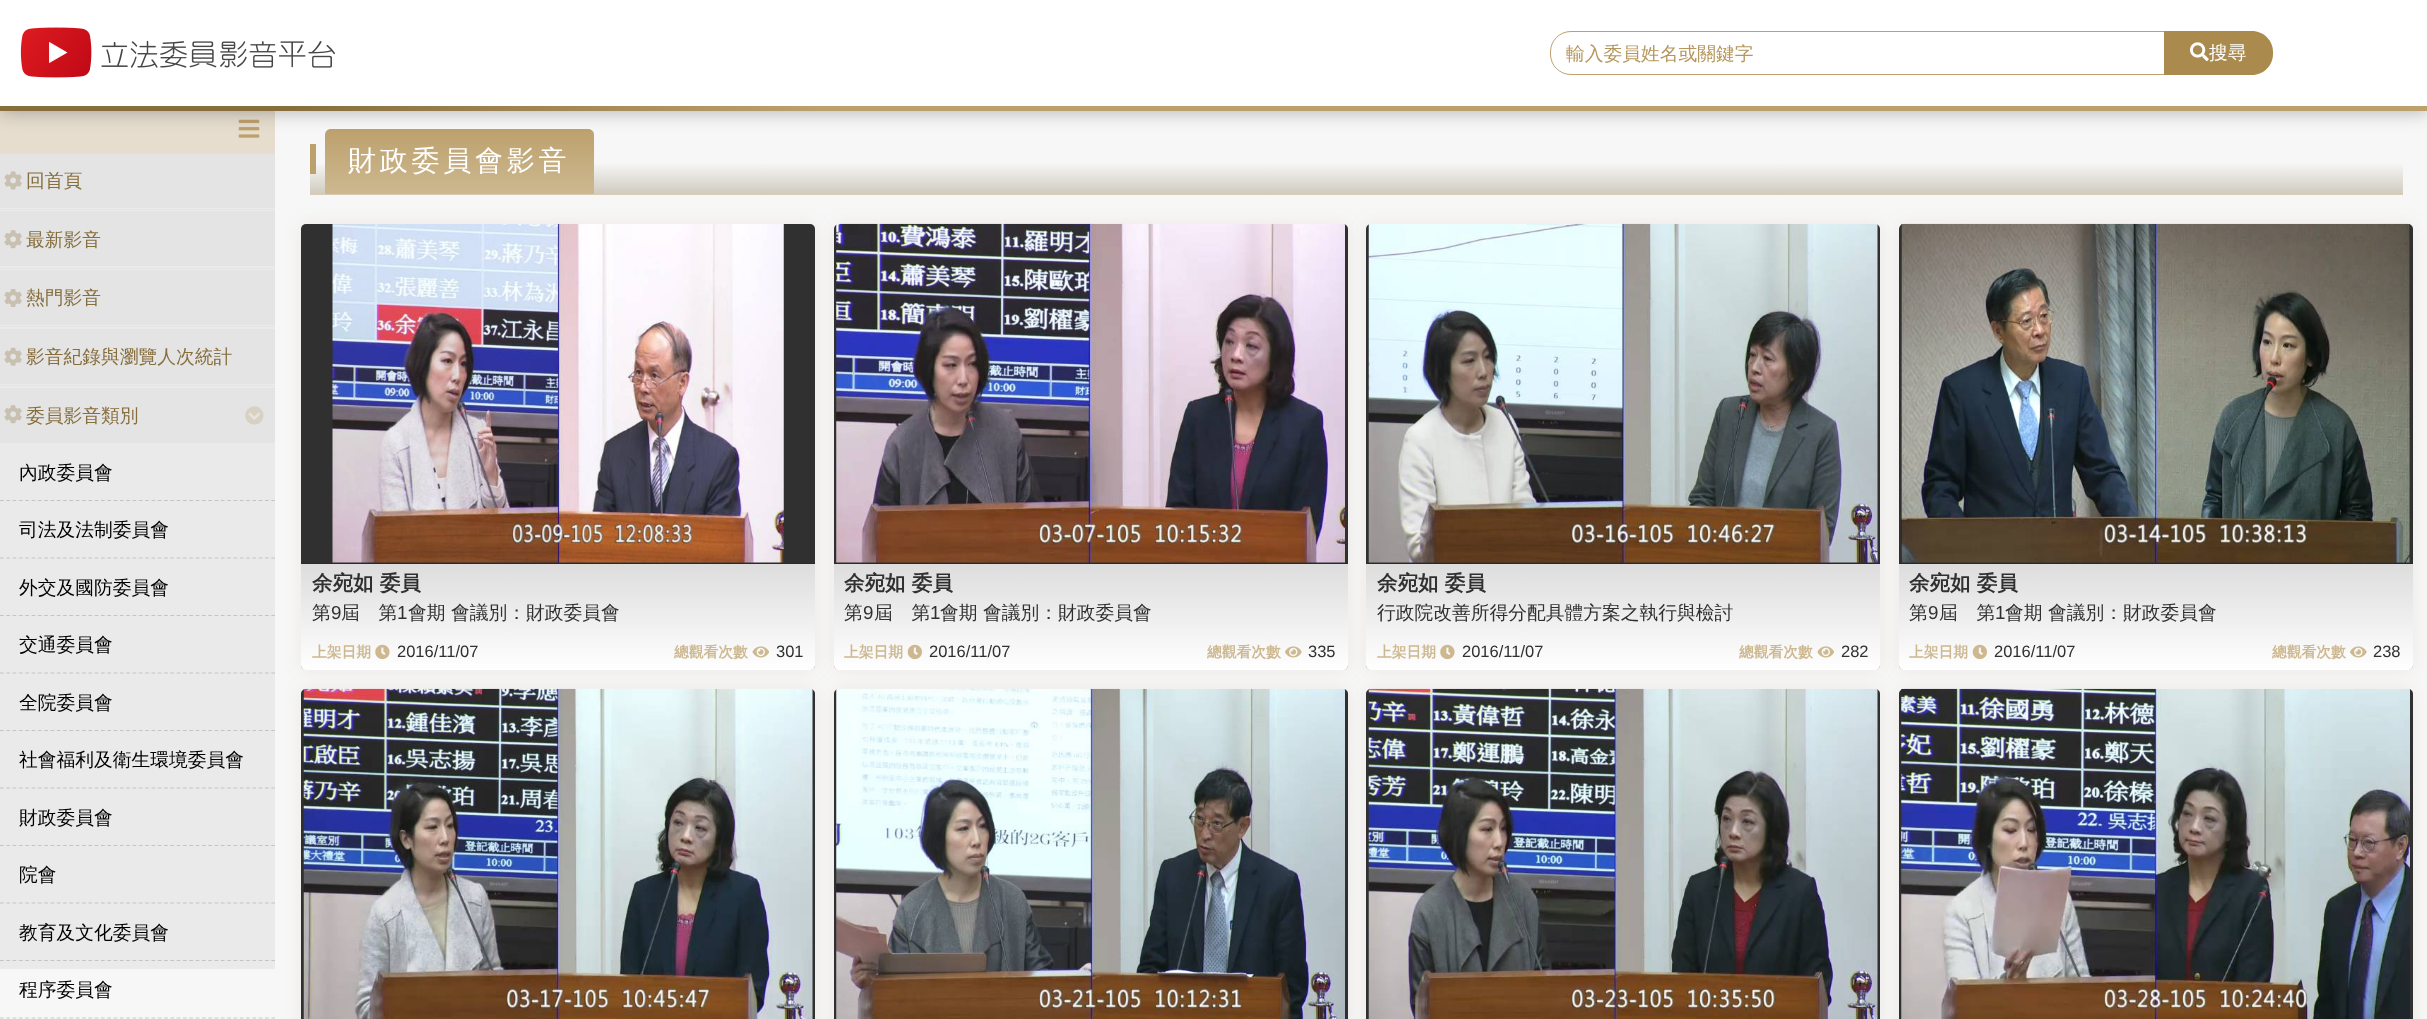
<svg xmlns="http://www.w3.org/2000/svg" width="2427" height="1019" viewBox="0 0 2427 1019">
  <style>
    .t1 { font: 500 18.75px WenQuanYi Zen Hei; fill: #b5965c; }
    .t2 { font: 500 18.75px WenQuanYi Zen Hei; fill: #fff; }
    .t3 { font: 500 18.75px WenQuanYi Zen Hei; fill: #876e3d; }
    .t4 { font: 500 18.75px WenQuanYi Zen Hei; fill: #000; }
    .t5 { font: 500 28px WenQuanYi Zen Hei; letter-spacing: 3.75px; fill: #fff; }
    .t6 { font: bold 20.5px WenQuanYi Zen Hei; fill: #303030; }
    .t7 { font: 500 18.75px WenQuanYi Zen Hei; fill: #303030; }
    .t8 { font: 18.75px Liberation Sans; fill: #303030; }
    .t9 { font: bold 14.75px WenQuanYi Zen Hei; fill: #cdb890; }
    .t10 { font: 16.5px Liberation Sans; fill: #303030; }
  </style>
  <defs>
    <linearGradient id="g1" gradientUnits="userSpaceOnUse" x1="1356" y1="129" x2="1356" y2="194"><stop offset="0.5" stop-color="#f8f8f8"/><stop offset="1" stop-color="#d0cbc0"/></linearGradient>
    <linearGradient id="g2" gradientUnits="userSpaceOnUse" x1="459" y1="129" x2="459" y2="194"><stop offset="0" stop-color="#bda16d"/><stop offset="1" stop-color="#cdb890"/></linearGradient>
    <linearGradient id="g3" gradientUnits="userSpaceOnUse" x1="0" y1="56" x2="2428" y2="56"><stop offset="0.12" stop-color="#876e3d"/><stop offset="0.34" stop-color="#bda16d"/></linearGradient>
    <linearGradient id="g4" gradientUnits="userSpaceOnUse" x1="558" y1="564" x2="558" y2="670"><stop offset="0" stop-color="#ddd"/><stop offset="1" stop-color="#fff"/></linearGradient>
    <linearGradient id="g5" gradientUnits="userSpaceOnUse" x1="1091" y1="564" x2="1091" y2="670"><stop offset="0" stop-color="#ddd"/><stop offset="1" stop-color="#fff"/></linearGradient>
    <linearGradient id="g6" gradientUnits="userSpaceOnUse" x1="1623" y1="564" x2="1623" y2="670"><stop offset="0" stop-color="#ddd"/><stop offset="1" stop-color="#fff"/></linearGradient>
    <linearGradient id="g7" gradientUnits="userSpaceOnUse" x1="2156" y1="564" x2="2156" y2="670"><stop offset="0" stop-color="#ddd"/><stop offset="1" stop-color="#fff"/></linearGradient>
  </defs>
  <rect width="100%" height="100%" fill="#f7f7f7"/>
  <rect x="0" y="111" width="275" height="43" fill="#e6ddce"/>
  <image x="238" y="119" width="22" height="19" href="images/3.png"/>
  <rect x="310" y="164" width="2093" height="30" fill="url(#g1)"/>
  <path d="M331 129H588C591.5 129 594 131.5 594 135V194H325V135C325 131.5 327.5 129 331 129Z" fill="url(#g2)"/>
  <rect x="0" y="0" width="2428" height="111" fill="#0000004d" filter="blur(9.5px)"/>
  <rect x="0" y="106" width="2427" height="5" fill="url(#g3)"/>
  <rect x="0" y="0" width="2427" height="106" fill="#fff"/>
  <image x="20" y="27" width="315" height="51" href="images/1.png"/>
  <path d="M1571 31.5H2164.5V74.5H1571C1559.5 74.5 1550.5 65.5 1550.5 54V52C1550.5 40.5 1559.5 31.5 1571 31.5Z" fill="none" stroke="#bda16d"/>
  <text x="1566" y="60" class="t1">輸入委員姓名或關鍵字</text>
  <path d="M2164 31H2252C2263.5 31 2273 40.5 2273 52V54C2273 65.5 2263.5 75 2252 75H2164Z" fill="#aa8a4d"/>
  <image x="2190" y="42" width="19" height="19" href="images/2.png"/>
  <text x="2209" y="59" class="t2">搜尋</text>
  <rect x="0" y="208" width="275" height="761" fill="#eaeaea"/>
  <rect x="0" y="209" width="275" height="1" fill="#e5e5e5"/>
  <rect x="0" y="154" width="275" height="54" fill="#e4e4e4"/>
  <image x="4" y="171" width="18" height="19" href="images/4.png"/>
  <text x="26" y="187" class="t3">回首頁</text>
  <rect x="0" y="268" width="275" height="1" fill="#e5e5e5"/>
  <rect x="0" y="211" width="275" height="55" fill="#e4e4e4"/>
  <image x="4" y="230" width="18" height="19" href="images/5.png"/>
  <text x="26" y="246" class="t3">最新影音</text>
  <rect x="0" y="326" width="275" height="1" fill="#e5e5e5"/>
  <rect x="0" y="270" width="275" height="55" fill="#e4e4e4"/>
  <image x="4" y="289" width="18" height="18" href="images/6.png"/>
  <text x="26" y="304" class="t3">熱門影音</text>
  <rect x="0" y="385" width="275" height="1" fill="#e5e5e5"/>
  <rect x="0" y="329" width="275" height="55" fill="#e4e4e4"/>
  <image x="4" y="347" width="18" height="19" href="images/7.png"/>
  <text x="26" y="363" class="t3">影音紀錄與瀏覽人次統計</text>
  <rect x="0" y="388" width="275" height="55" fill="#e4e4e4"/>
  <image x="4" y="405" width="18" height="19" href="images/5.png"/>
  <text x="26" y="422" class="t3">委員影音類別</text>
  <image x="245" y="406" width="19" height="19" href="images/8.png"/>
  <path d="M0 500.5H275" fill="none" stroke="#c4c4c4" stroke-width="1.2" stroke-dasharray="3.75 2.56"/>
  <text x="19" y="479" class="t4">內政委員會</text>
  <path d="M0 558H275" fill="none" stroke="#c4c4c4" stroke-width="1.2" stroke-dasharray="3.75 2.56"/>
  <text x="19" y="536" class="t4">司法及法制委員會</text>
  <path d="M0 615.5H275" fill="none" stroke="#c4c4c4" stroke-width="1.2" stroke-dasharray="3.75 2.56"/>
  <text x="19" y="594" class="t4">外交及國防委員會</text>
  <path d="M0 673H275" fill="none" stroke="#c4c4c4" stroke-width="1.2" stroke-dasharray="3.75 2.56"/>
  <text x="19" y="651" class="t4">交通委員會</text>
  <path d="M0 730.5H275" fill="none" stroke="#c4c4c4" stroke-width="1.2" stroke-dasharray="3.75 2.56"/>
  <text x="19" y="709" class="t4">全院委員會</text>
  <path d="M0 788H275" fill="none" stroke="#c4c4c4" stroke-width="1.2" stroke-dasharray="3.75 2.56"/>
  <text x="19" y="766" class="t4">社會福利及衛生環境委員會</text>
  <path d="M0 845.5H275" fill="none" stroke="#c4c4c4" stroke-width="1.2" stroke-dasharray="3.75 2.56"/>
  <text x="19" y="824" class="t4">財政委員會</text>
  <path d="M0 903H275" fill="none" stroke="#c4c4c4" stroke-width="1.2" stroke-dasharray="3.75 2.56"/>
  <text x="19" y="881" class="t4">院會</text>
  <path d="M0 960.5H275" fill="none" stroke="#c4c4c4" stroke-width="1.2" stroke-dasharray="3.75 2.56"/>
  <text x="19" y="939" class="t4">教育及文化委員會</text>
  <path d="M0 1018H275" fill="none" stroke="#c9c9c9" stroke-width="1.2" stroke-dasharray="3.75 2.56"/>
  <text x="19" y="996" class="t4">程序委員會</text>
  <rect x="310" y="194" width="2093" height="1" fill="#daccb2"/>
  <rect x="310" y="144" width="6" height="30" fill="#bda16d"/>
  <text x="348" y="170" class="t5">財政委員會影音</text>
  <rect x="301" y="224" width="514" height="446" rx="5" fill="#876e3d1a" filter="blur(9px)"/>
  <rect x="301" y="224" width="514" height="446" rx="5" fill="#303030"/>
  <image x="332" y="223" width="452" height="340" href="images/9.png"/>
  <rect x="301" y="563" width="514" height="1" fill="#2a2a2a"/>
  <path d="M301 564H815V665C815 668 813 670 810 670H306C303 670 301 668 301 665Z" fill="url(#g4)"/>
  <text x="312" y="590" class="t6">余宛如 委員</text>
  <text x="312" y="619" class="t7">第</text>
  <text x="331" y="619" class="t8">9</text>
  <text x="341" y="619" class="t7">屆　第</text>
  <text x="397" y="619" class="t8">1</text>
  <text x="408" y="619" class="t7">會期 會議別：財政委員會</text>
  <image x="375" y="644" width="15" height="16" href="images/10.png"/>
  <text x="312" y="657" class="t9">上架日期</text>
  <text x="397" y="657" class="t10">2016/11/07</text>
  <image x="752" y="646" width="17" height="12" href="images/11.png"/>
  <text x="674" y="657" class="t9">總觀看次數</text>
  <text x="776" y="657" class="t10">301</text>
  <rect x="834" y="224" width="514" height="446" rx="5" fill="#876e3d1a" filter="blur(9px)"/>
  <rect x="834" y="224" width="514" height="446" rx="5" fill="#303030"/>
  <image x="836" y="223" width="509" height="340" href="images/12.png"/>
  <rect x="834" y="563" width="514" height="1" fill="#2a2a2a"/>
  <path d="M834 564H1348V665C1348 668 1346 670 1343 670H839C836 670 834 668 834 665Z" fill="url(#g5)"/>
  <text x="844" y="590" class="t6">余宛如 委員</text>
  <text x="844" y="619" class="t7">第</text>
  <text x="863" y="619" class="t8">9</text>
  <text x="874" y="619" class="t7">屆　第</text>
  <text x="930" y="619" class="t8">1</text>
  <text x="940" y="619" class="t7">會期 會議別：財政委員會</text>
  <image x="907" y="644" width="15" height="16" href="images/13.png"/>
  <text x="844" y="657" class="t9">上架日期</text>
  <text x="929" y="657" class="t10">2016/11/07</text>
  <image x="1285" y="646" width="17" height="12" href="images/14.png"/>
  <text x="1207" y="657" class="t9">總觀看次數</text>
  <text x="1308" y="657" class="t10">335</text>
  <rect x="1366" y="224" width="514" height="446" rx="5" fill="#876e3d1a" filter="blur(9px)"/>
  <rect x="1366" y="224" width="514" height="446" rx="5" fill="#303030"/>
  <image x="1368" y="223" width="510" height="340" href="images/15.png"/>
  <rect x="1366" y="563" width="514" height="1" fill="#2a2a2a"/>
  <path d="M1366 564H1880V665C1880 668 1878 670 1875 670H1371C1368 670 1366 668 1366 665Z" fill="url(#g6)"/>
  <text x="1377" y="590" class="t6">余宛如 委員</text>
  <text x="1377" y="619" class="t7">行政院改善所得分配具體方案之執行與檢討</text>
  <image x="1440" y="644" width="15" height="16" href="images/10.png"/>
  <text x="1377" y="657" class="t9">上架日期</text>
  <text x="1462" y="657" class="t10">2016/11/07</text>
  <image x="1817" y="646" width="17" height="12" href="images/11.png"/>
  <text x="1739" y="657" class="t9">總觀看次數</text>
  <text x="1841" y="657" class="t10">282</text>
  <rect x="1899" y="224" width="514" height="446" rx="5" fill="#876e3d1a" filter="blur(9px)"/>
  <rect x="1899" y="224" width="514" height="446" rx="5" fill="#303030"/>
  <image x="1901" y="223" width="509" height="340" href="images/16.png"/>
  <rect x="1899" y="563" width="514" height="1" fill="#2a2a2a"/>
  <path d="M1899 564H2413V665C2413 668 2411 670 2408 670H1904C1901 670 1899 668 1899 665Z" fill="url(#g7)"/>
  <text x="1909" y="590" class="t6">余宛如 委員</text>
  <text x="1909" y="619" class="t7">第</text>
  <text x="1928" y="619" class="t8">9</text>
  <text x="1939" y="619" class="t7">屆　第</text>
  <text x="1995" y="619" class="t8">1</text>
  <text x="2005" y="619" class="t7">會期 會議別：財政委員會</text>
  <image x="1972" y="644" width="15" height="16" href="images/13.png"/>
  <text x="1909" y="657" class="t9">上架日期</text>
  <text x="1994" y="657" class="t10">2016/11/07</text>
  <image x="2350" y="646" width="17" height="12" href="images/14.png"/>
  <text x="2272" y="657" class="t9">總觀看次數</text>
  <text x="2373" y="657" class="t10">238</text>
  <rect x="301" y="689" width="514" height="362" rx="5" fill="#876e3d1a" filter="blur(9px)"/>
  <path d="M306 689H810C813 689 815 691 815 694V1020H301V694C301 691 303 689 306 689Z" fill="#303030"/>
  <image x="303" y="688" width="510" height="331" href="images/17.png"/>
  <rect x="834" y="689" width="514" height="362" rx="5" fill="#876e3d1a" filter="blur(9px)"/>
  <path d="M839 689H1343C1346 689 1348 691 1348 694V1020H834V694C834 691 836 689 839 689Z" fill="#303030"/>
  <image x="836" y="688" width="509" height="331" href="images/18.png"/>
  <rect x="1366" y="689" width="514" height="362" rx="5" fill="#876e3d1a" filter="blur(9px)"/>
  <path d="M1371 689H1875C1878 689 1880 691 1880 694V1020H1366V694C1366 691 1368 689 1371 689Z" fill="#303030"/>
  <image x="1368" y="688" width="510" height="331" href="images/19.png"/>
  <rect x="1899" y="689" width="514" height="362" rx="5" fill="#876e3d1a" filter="blur(9px)"/>
  <path d="M1904 689H2408C2411 689 2413 691 2413 694V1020H1899V694C1899 691 1901 689 1904 689Z" fill="#303030"/>
  <image x="1901" y="688" width="509" height="331" href="images/20.png"/>
</svg>
